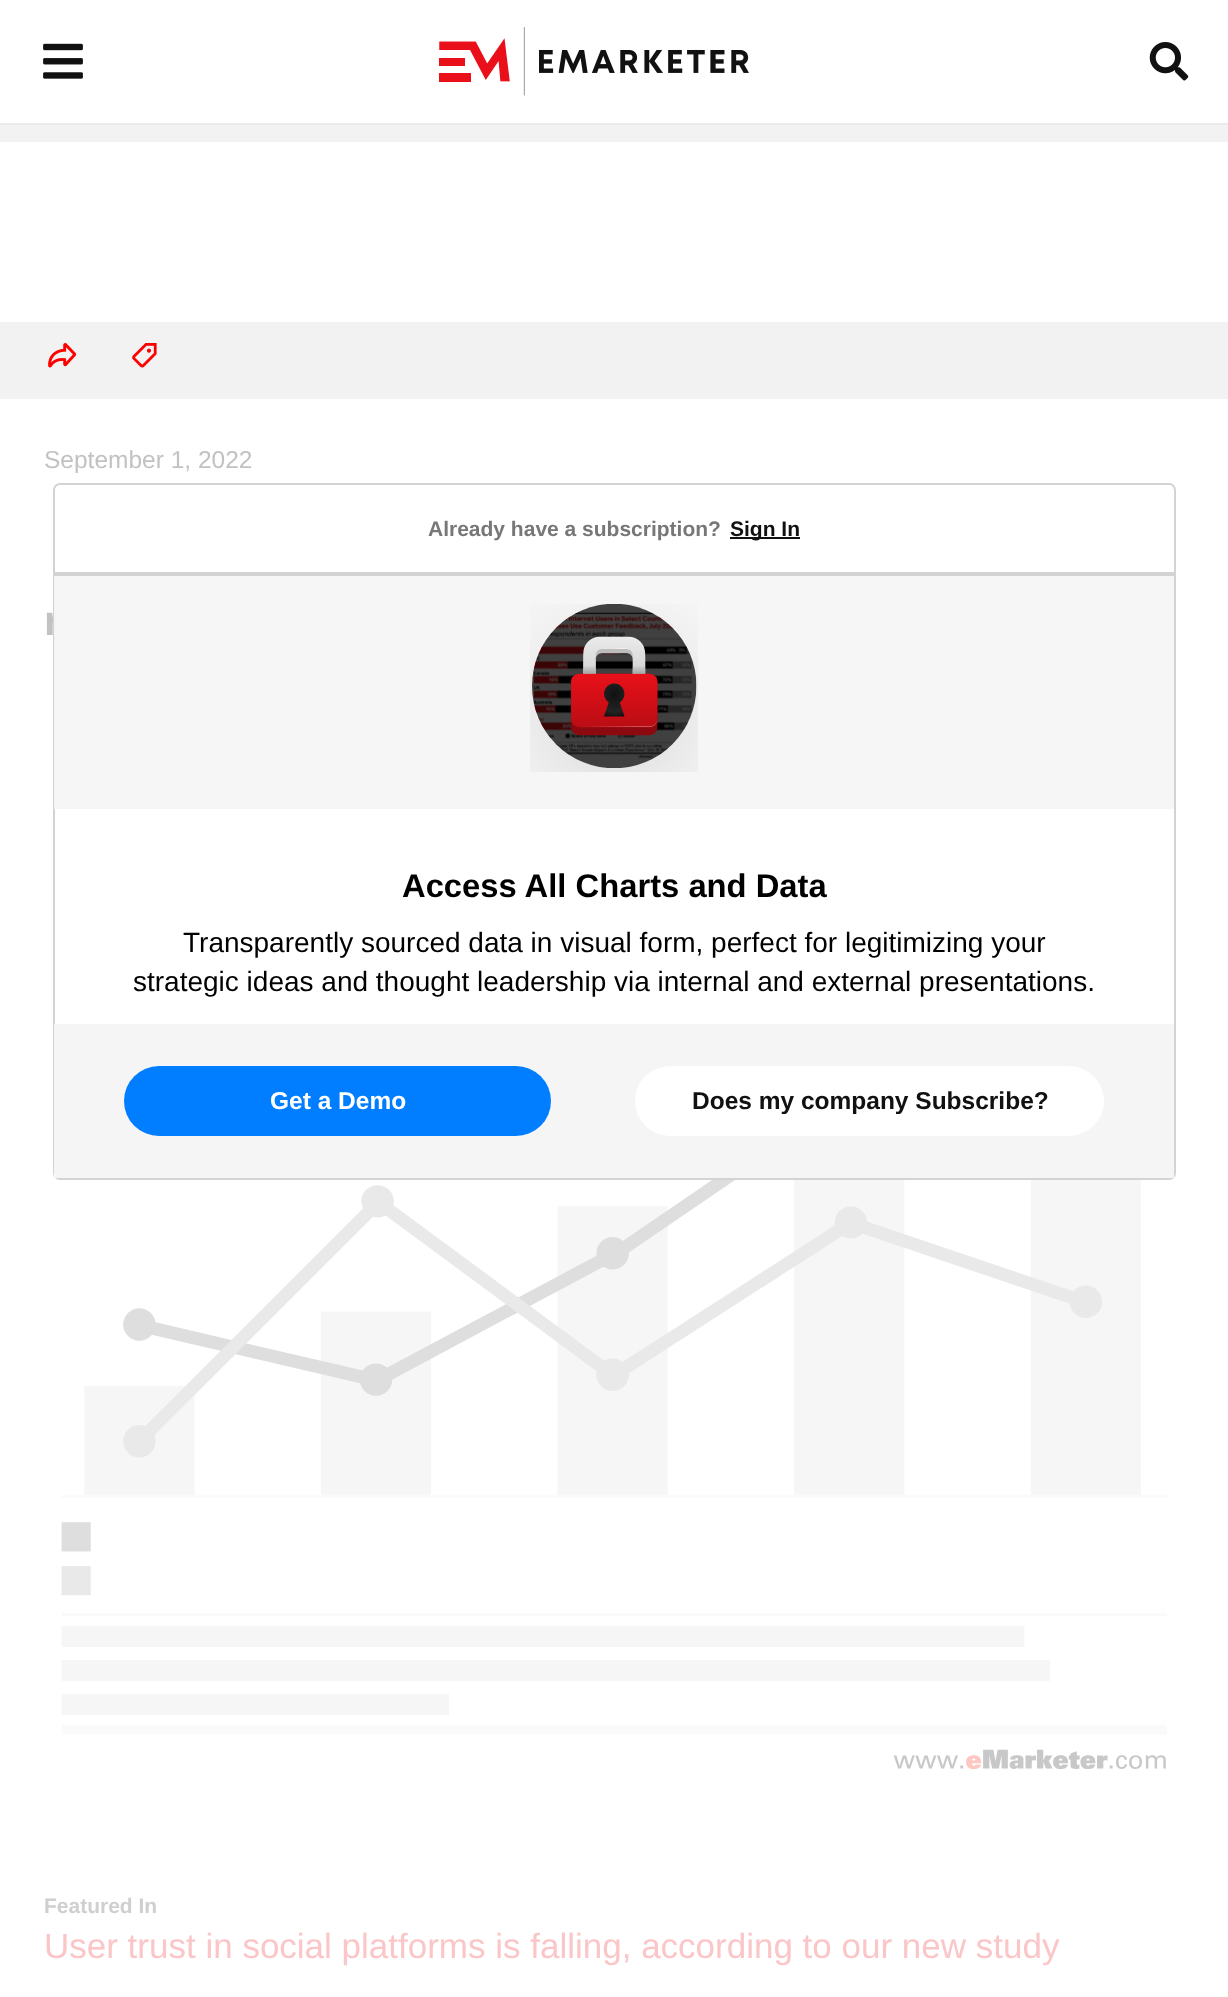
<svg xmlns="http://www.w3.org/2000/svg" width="1228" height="1997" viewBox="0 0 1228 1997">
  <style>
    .t1 { font: 24.5px Liberation Sans; fill: #c2c2c2; }
    .t2 { font: bold 42px Liberation Sans; fill: #c2c2c2; }
    .t3 { font: bold 21px Liberation Sans; fill: #777; }
    .t4 { font: bold 21px Liberation Sans; fill: #111; }
    .t5 { font: bold 32.75px Liberation Sans; fill: #000; }
    .t6 { font: 28px Liberation Sans; fill: #000; }
    .t7 { font: bold 24.5px Liberation Sans; fill: #fff; }
    .t8 { font: bold 24.5px Liberation Sans; fill: #111; }
    .t9 { font: bold 21px Liberation Sans; fill: #cfcfd0; }
    .t10 { font: 35px Liberation Sans; fill: #fac6c8; }
  </style>
  <rect width="100%" height="100%" fill="#f2f2f2"/>
  <rect x="0" y="123" width="1228" height="2" fill="#ebebeb"/>
  <rect x="0" y="0" width="1228" height="123" fill="#fff"/>
  <image x="439" y="27" width="310" height="69" href="images/1.png"/>
  <image x="1149" y="42" width="40" height="39" href="images/2.png"/>
  <image x="43" y="43" width="40" height="36" href="images/3.png"/>
  <rect x="0" y="142" width="1228" height="180" fill="#fff"/>
  <rect x="0" y="399" width="1228" height="1598" fill="#fff"/>
  <image x="48" y="343" width="29" height="25" href="images/4.png"/>
  <image x="132" y="343" width="25" height="25" href="images/5.png"/>
  <text x="44" y="468" class="t1">September 1, 2022</text>
  <text x="44" y="635" class="t2">r</text>
  <rect x="54" y="484" width="1121" height="695" rx="6" fill="#fff" stroke="#d3d3d3" stroke-width="2"/>
  <text x="428" y="536" class="t3">Already have a subscription?</text>
  <rect x="730" y="537" width="70" height="2" fill="#111"/>
  <text x="730" y="536" class="t4">Sign In</text>
  <rect x="54" y="572" width="1120" height="4" fill="#d3d3d3"/>
  <rect x="54" y="576" width="1120" height="233" fill="#f5f5f5e6"/>
  <image x="530" y="604" width="168" height="168" href="images/6.png"/>
  <text x="402" y="897" class="t5">Access All Charts and Data</text>
  <text x="183" y="952" class="t6">Transparently sourced data in visual form, perfect for legitimizing your</text>
  <text x="133" y="991" class="t6">strategic ideas and thought leadership via internal and external presentations.</text>
  <rect x="54" y="1024" width="1120" height="154" fill="#f5f5f5"/>
  <rect x="124" y="1066" width="427" height="70" rx="35" fill="#007eff"/>
  <text x="270" y="1109" class="t7">Get a Demo</text>
  <rect x="635" y="1066" width="469" height="70" rx="35" fill="#fff"/>
  <text x="692" y="1109" class="t8">Does my company Subscribe?</text>
  <image x="61" y="1180" width="1106" height="589" href="images/7.png"/>
  <text x="44" y="1913" class="t9">Featured In</text>
  <text x="44" y="1958" class="t10">User trust in social platforms is falling, according to our new study</text>
</svg>
